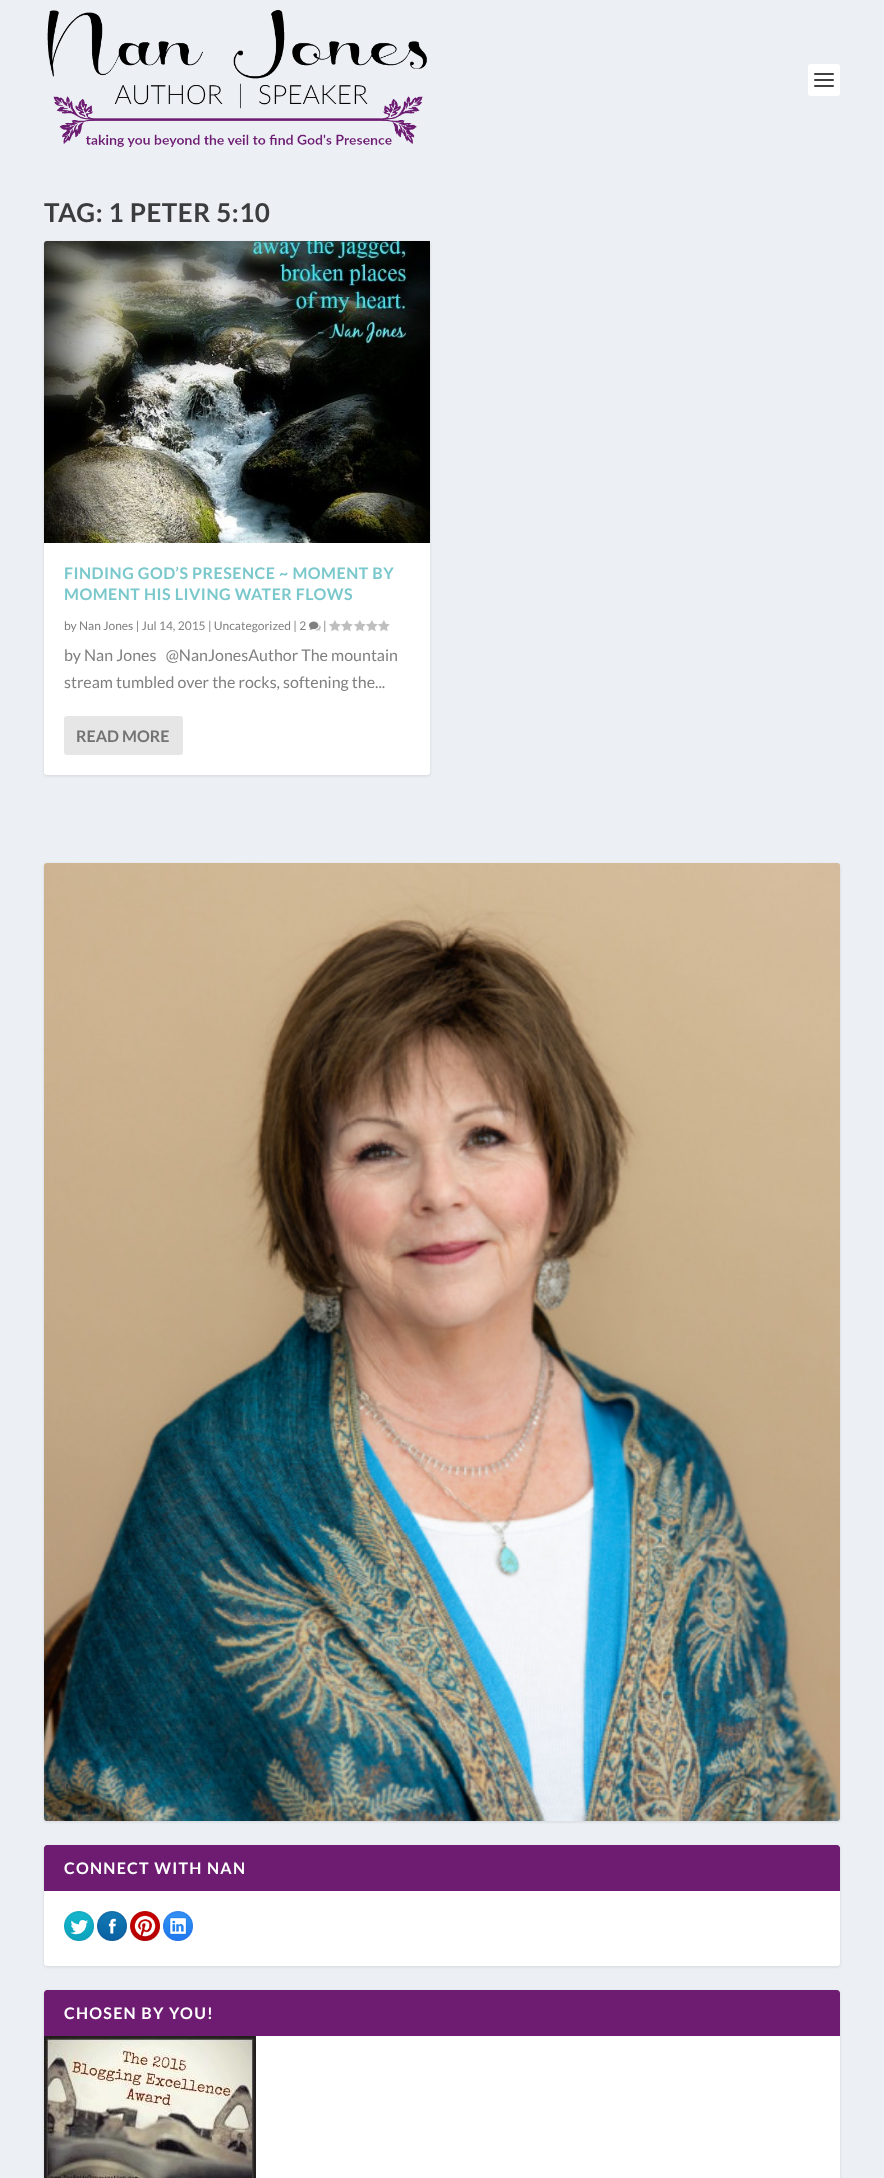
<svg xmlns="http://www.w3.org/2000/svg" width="884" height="2178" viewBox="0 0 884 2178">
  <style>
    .t1 { font: bold 26px Lato; letter-spacing: 0.5px; fill: #3b3c3d; }
    .t2 { font: bold 16px Lato; letter-spacing: 0.5px; fill: #7ac8cc; }
    .t3 { font: 12px Lato; fill: #808080; }
    .t4 { font: 16px Lato; fill: #808080; }
    .t5 { font: bold 16px Lato; fill: #737373; }
    .t6 { font: bold 16px Lato; letter-spacing: 1.25px; fill: #fff; }
  </style>
  <rect width="100%" height="100%" fill="#ecf0f5"/>
  <image x="47" y="10" width="380" height="137" href="images/1.png"/>
  <rect x="808" y="64" width="32" height="32" rx="3" fill="#fff"/>
  <rect x="814" y="73" width="20" height="2" rx="1" fill="#404040"/>
  <rect x="814" y="79" width="20" height="2" rx="1" fill="#404040"/>
  <rect x="814" y="85" width="20" height="2" rx="1" fill="#404040"/>
  <text x="44" y="222" class="t1">TAG: 1 PETER 5:10</text>
  <rect x="44" y="242" width="386" height="534" rx="3" fill="#0000001a" filter="blur(1.5px)"/>
  <rect x="44" y="241" width="386" height="534" rx="3" fill="#fff"/>
  <image x="44" y="241" width="386" height="302" href="images/2.png"/>
  <text x="64" y="579" class="t2">FINDING GOD’S PRESENCE ~ MOMENT BY</text>
  <text x="64" y="600" class="t2">MOMENT HIS LIVING WATER FLOWS</text>
  <text x="64" y="630" class="t3">by Nan Jones | Jul 14, 2015 | Uncategorized | 2</text>
  <image x="309" y="621" width="12" height="10" href="images/3.png"/>
  <text x="323" y="630" class="t3">|</text>
  <image x="329" y="620" width="12" height="12" href="images/4.png"/>
  <image x="341" y="620" width="12" height="12" href="images/4.png"/>
  <image x="354" y="620" width="12" height="12" href="images/4.png"/>
  <image x="366" y="620" width="12" height="12" href="images/4.png"/>
  <image x="378" y="620" width="12" height="12" href="images/4.png"/>
  <text x="64" y="661" class="t4" xml:space="preserve">by Nan Jones   @NanJonesAuthor The mountain</text>
  <text x="64" y="688" class="t4">stream tumbled over the rocks, softening the...</text>
  <rect x="64" y="716" width="119" height="39" rx="3" fill="#e6e6e6"/>
  <text x="76" y="742" class="t5">READ MORE</text>
  <rect x="44" y="864" width="796" height="958" rx="3" fill="#0000001a" filter="blur(1.5px)"/>
  <image x="44" y="863" width="796" height="958" href="images/5.png"/>
  <rect x="44" y="1846" width="796" height="121" rx="3" fill="#0000001a" filter="blur(1.5px)"/>
  <rect x="44" y="1845" width="796" height="121" rx="3" fill="#fff"/>
  <path d="M47 1845H837C838.5 1845 840 1846.5 840 1848V1891H44V1848C44 1846.5 45.5 1845 47 1845Z" fill="#6d1c72"/>
  <text x="64" y="1874" class="t6">CONNECT WITH NAN</text>
  <image x="64" y="1911" width="30" height="30" href="images/6.png"/>
  <image x="97" y="1911" width="30" height="30" href="images/7.png"/>
  <image x="130" y="1911" width="30" height="30" href="images/8.png"/>
  <image x="163" y="1911" width="30" height="30" href="images/9.png"/>
  <rect x="44" y="1991" width="796" height="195" rx="3" fill="#0000001a" filter="blur(1.5px)"/>
  <rect x="44" y="1990" width="796" height="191" rx="3" fill="#fff"/>
  <path d="M47 1990H837C838.5 1990 840 1991.5 840 1993V2036H44V1993C44 1991.5 45.5 1990 47 1990Z" fill="#6d1c72"/>
  <text x="64" y="2019" class="t6">CHOSEN BY YOU!</text>
  <image x="44" y="2036" width="212" height="142" href="images/10.png"/>
</svg>
